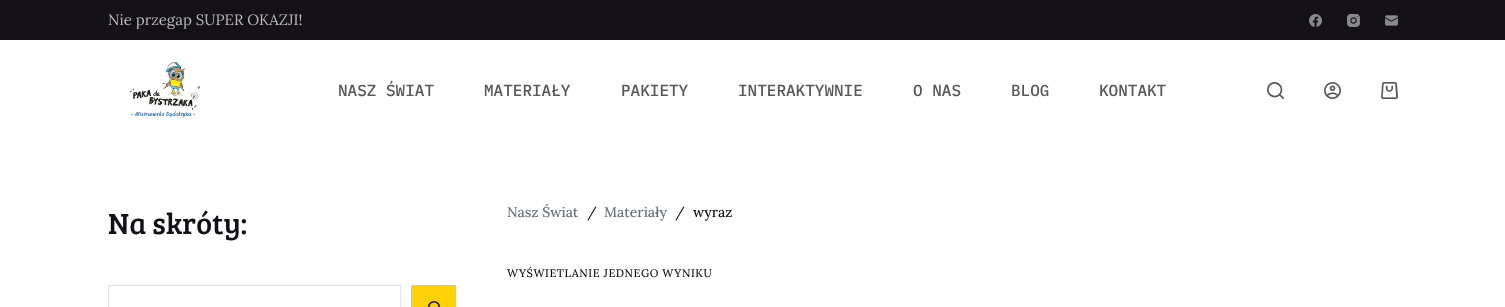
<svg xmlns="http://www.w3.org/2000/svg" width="1505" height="307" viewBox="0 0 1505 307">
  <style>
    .t1 { font: 15px Lora; fill: #b8b8b9; }
    .t2 { font: 500 16px IBM Plex Mono; fill: #5a585d; }
    .t3 { font: 30px Bree Serif; fill: #131117; }
    .t4 { font: 500 14px Lora; fill: #687279; }
    .t5 { font: 500 14px Lora; fill: #131117; }
    .t6 { font: 500 11px Lora; letter-spacing: 0.55px; fill: #131117; }
  </style>
  <rect width="100%" height="100%" fill="#fff"/>
  <rect x="0" y="0" width="1505" height="40" fill="#131117"/>
  <text x="108" y="25" class="t1">Nie przegap SUPER OKAZJI!</text>
  <image x="1309" y="14" width="13" height="13" href="images/1.png"/>
  <image x="1347" y="14" width="13" height="13" href="images/2.png"/>
  <image x="1385" y="15" width="13" height="11" href="images/3.png"/>
  <image x="129" y="62" width="71" height="56" href="images/4.png"/>
  <text x="338" y="96" class="t2">NASZ ŚWIAT</text>
  <text x="484" y="96" class="t2">MATERIAŁY</text>
  <text x="621" y="96" class="t2">PAKIETY</text>
  <text x="738" y="96" class="t2">INTERAKTYWNIE</text>
  <text x="913" y="96" class="t2">O NAS</text>
  <text x="1011" y="96" class="t2">BLOG</text>
  <text x="1099" y="96" class="t2">KONTAKT</text>
  <image x="1267" y="82" width="17" height="17" href="images/5.png"/>
  <image x="1324" y="82" width="17" height="17" href="images/6.png"/>
  <image x="1381" y="82" width="17" height="17" href="images/7.png"/>
  <text x="108" y="234" class="t3">Na skróty:</text>
  <rect x="108.5" y="285.5" width="292" height="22" fill="none" stroke="#e0e5eb"/>
  <rect x="411" y="285" width="45" height="22" fill="#ffd106"/>
  <image x="428" y="301" width="13" height="6" href="images/8.png"/>
  <text x="507" y="217" class="t4">Nasz Świat</text>
  <text x="587" y="217" class="t5">/</text>
  <text x="604" y="217" class="t4">Materiały</text>
  <text x="675" y="217" class="t5">/</text>
  <text x="693" y="217" class="t5">wyraz</text>
  <text x="507" y="277" class="t6">WYŚWIETLANIE JEDNEGO WYNIKU</text>
</svg>
